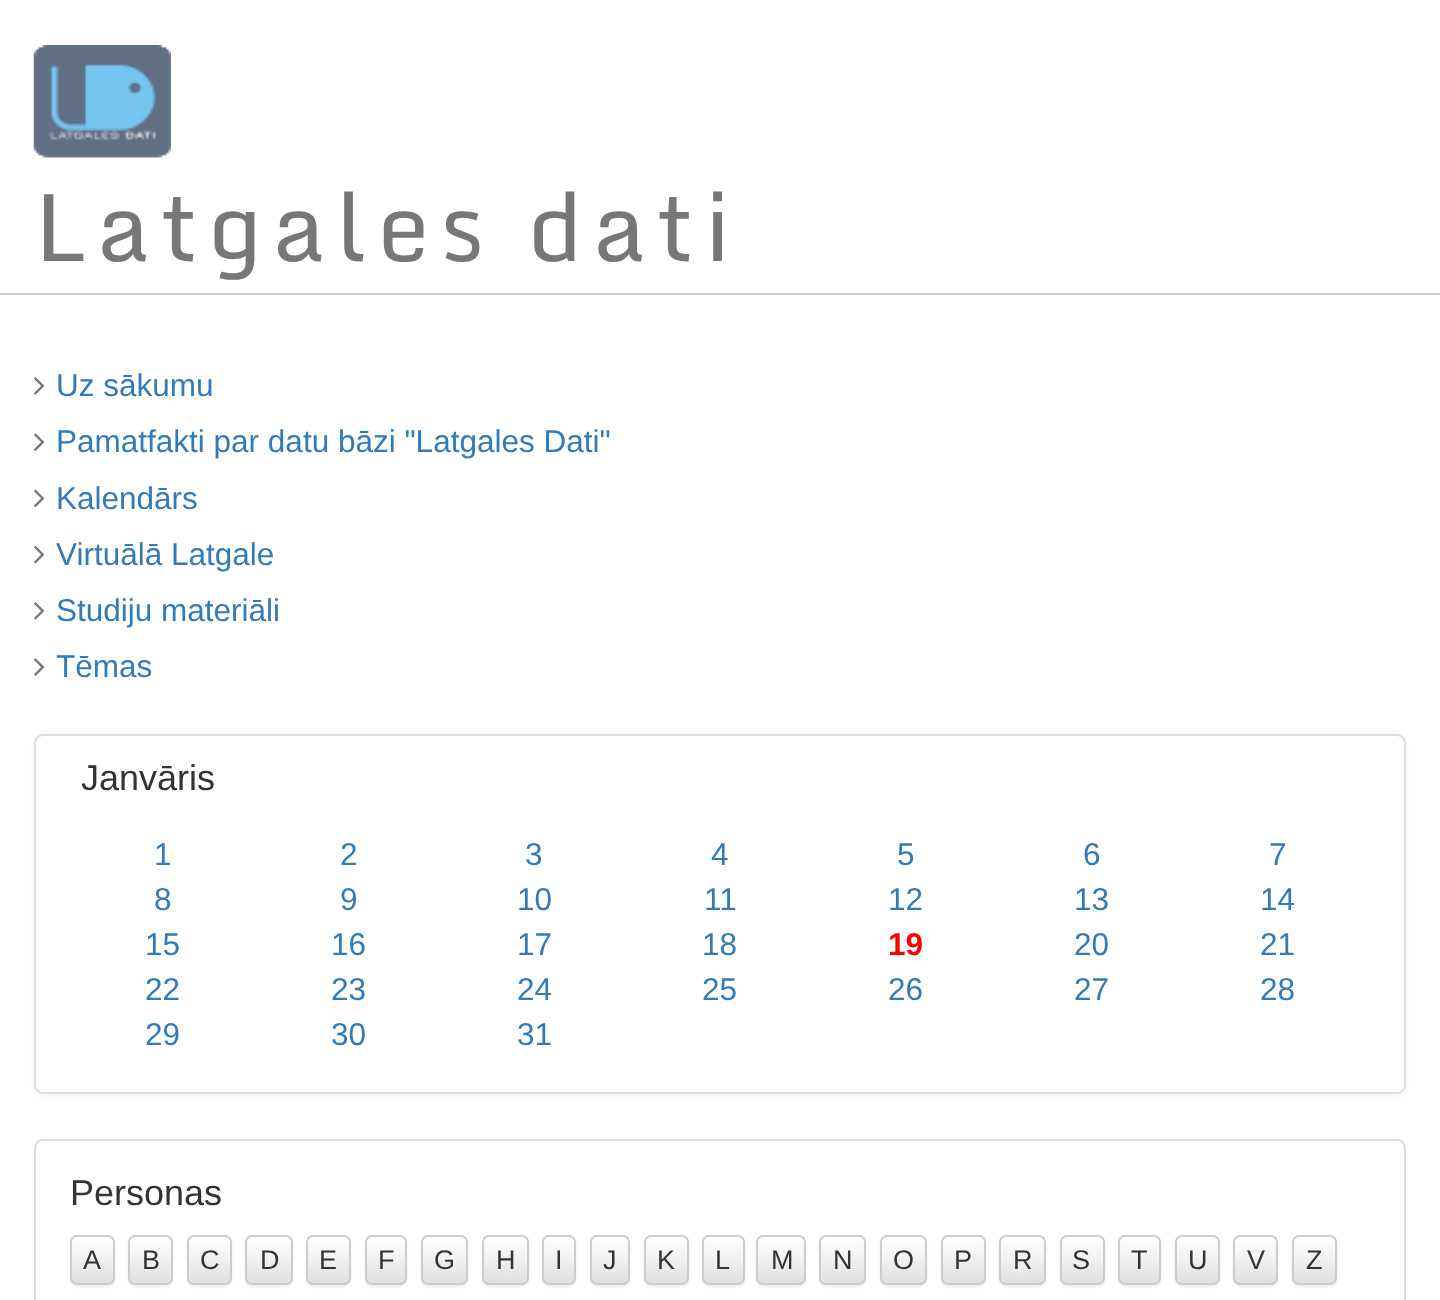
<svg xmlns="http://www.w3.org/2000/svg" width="1440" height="1300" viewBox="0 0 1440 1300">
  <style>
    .t1 { font: 94.5px Monda; letter-spacing: 9.5px; fill: #777; }
    .t2 { font: 31.5px Liberation Sans; fill: #337ab7; }
    .t3 { font: 36px Liberation Sans; fill: #333; }
    .t4 { font: bold 31.5px Liberation Sans; fill: #f00; }
    .t5 { font: 27px Liberation Sans; fill: #333; }
  </style>
  <defs>
    <clipPath id="clip1"><rect x="70" y="1235" width="45" height="50" rx="7"/></clipPath>
    <linearGradient id="g1" gradientUnits="userSpaceOnUse" x1="92" y1="1238" x2="92" y2="1283"><stop offset="0" stop-color="#fff"/><stop offset="1" stop-color="#e0e0e0"/></linearGradient>
    <clipPath id="clip2"><rect x="128" y="1235" width="45" height="50" rx="7"/></clipPath>
    <linearGradient id="g2" gradientUnits="userSpaceOnUse" x1="151" y1="1238" x2="151" y2="1283"><stop offset="0" stop-color="#fff"/><stop offset="1" stop-color="#e0e0e0"/></linearGradient>
    <clipPath id="clip3"><rect x="187" y="1235" width="45" height="50" rx="7"/></clipPath>
    <linearGradient id="g3" gradientUnits="userSpaceOnUse" x1="209" y1="1238" x2="209" y2="1283"><stop offset="0" stop-color="#fff"/><stop offset="1" stop-color="#e0e0e0"/></linearGradient>
    <clipPath id="clip4"><rect x="245" y="1235" width="48" height="50" rx="7"/></clipPath>
    <linearGradient id="g4" gradientUnits="userSpaceOnUse" x1="269" y1="1238" x2="269" y2="1283"><stop offset="0" stop-color="#fff"/><stop offset="1" stop-color="#e0e0e0"/></linearGradient>
    <clipPath id="clip5"><rect x="306" y="1235" width="45" height="50" rx="7"/></clipPath>
    <linearGradient id="g5" gradientUnits="userSpaceOnUse" x1="329" y1="1238" x2="329" y2="1283"><stop offset="0" stop-color="#fff"/><stop offset="1" stop-color="#e0e0e0"/></linearGradient>
    <clipPath id="clip6"><rect x="365" y="1235" width="42" height="50" rx="7"/></clipPath>
    <linearGradient id="g6" gradientUnits="userSpaceOnUse" x1="386" y1="1238" x2="386" y2="1283"><stop offset="0" stop-color="#fff"/><stop offset="1" stop-color="#e0e0e0"/></linearGradient>
    <clipPath id="clip7"><rect x="421" y="1235" width="47" height="50" rx="7"/></clipPath>
    <linearGradient id="g7" gradientUnits="userSpaceOnUse" x1="444" y1="1238" x2="444" y2="1283"><stop offset="0" stop-color="#fff"/><stop offset="1" stop-color="#e0e0e0"/></linearGradient>
    <clipPath id="clip8"><rect x="482" y="1235" width="47" height="50" rx="7"/></clipPath>
    <linearGradient id="g8" gradientUnits="userSpaceOnUse" x1="505" y1="1238" x2="505" y2="1283"><stop offset="0" stop-color="#fff"/><stop offset="1" stop-color="#e0e0e0"/></linearGradient>
    <clipPath id="clip9"><rect x="542" y="1235" width="34" height="50" rx="7"/></clipPath>
    <linearGradient id="g9" gradientUnits="userSpaceOnUse" x1="559" y1="1238" x2="559" y2="1283"><stop offset="0" stop-color="#fff"/><stop offset="1" stop-color="#e0e0e0"/></linearGradient>
    <clipPath id="clip10"><rect x="590" y="1235" width="40" height="50" rx="7"/></clipPath>
    <linearGradient id="g10" gradientUnits="userSpaceOnUse" x1="610" y1="1238" x2="610" y2="1283"><stop offset="0" stop-color="#fff"/><stop offset="1" stop-color="#e0e0e0"/></linearGradient>
    <clipPath id="clip11"><rect x="644" y="1235" width="45" height="50" rx="7"/></clipPath>
    <linearGradient id="g11" gradientUnits="userSpaceOnUse" x1="666" y1="1238" x2="666" y2="1283"><stop offset="0" stop-color="#fff"/><stop offset="1" stop-color="#e0e0e0"/></linearGradient>
    <clipPath id="clip12"><rect x="702" y="1235" width="43" height="50" rx="7"/></clipPath>
    <linearGradient id="g12" gradientUnits="userSpaceOnUse" x1="723" y1="1238" x2="723" y2="1283"><stop offset="0" stop-color="#fff"/><stop offset="1" stop-color="#e0e0e0"/></linearGradient>
    <clipPath id="clip13"><rect x="756" y="1235" width="50" height="50" rx="7"/></clipPath>
    <linearGradient id="g13" gradientUnits="userSpaceOnUse" x1="781" y1="1238" x2="781" y2="1283"><stop offset="0" stop-color="#fff"/><stop offset="1" stop-color="#e0e0e0"/></linearGradient>
    <clipPath id="clip14"><rect x="819" y="1235" width="47" height="50" rx="7"/></clipPath>
    <linearGradient id="g14" gradientUnits="userSpaceOnUse" x1="843" y1="1238" x2="843" y2="1283"><stop offset="0" stop-color="#fff"/><stop offset="1" stop-color="#e0e0e0"/></linearGradient>
    <clipPath id="clip15"><rect x="880" y="1235" width="47" height="50" rx="7"/></clipPath>
    <linearGradient id="g15" gradientUnits="userSpaceOnUse" x1="903" y1="1238" x2="903" y2="1283"><stop offset="0" stop-color="#fff"/><stop offset="1" stop-color="#e0e0e0"/></linearGradient>
    <clipPath id="clip16"><rect x="941" y="1235" width="45" height="50" rx="7"/></clipPath>
    <linearGradient id="g16" gradientUnits="userSpaceOnUse" x1="963" y1="1238" x2="963" y2="1283"><stop offset="0" stop-color="#fff"/><stop offset="1" stop-color="#e0e0e0"/></linearGradient>
    <clipPath id="clip17"><rect x="999" y="1235" width="47" height="50" rx="7"/></clipPath>
    <linearGradient id="g17" gradientUnits="userSpaceOnUse" x1="1023" y1="1238" x2="1023" y2="1283"><stop offset="0" stop-color="#fff"/><stop offset="1" stop-color="#e0e0e0"/></linearGradient>
    <clipPath id="clip18"><rect x="1060" y="1235" width="45" height="50" rx="7"/></clipPath>
    <linearGradient id="g18" gradientUnits="userSpaceOnUse" x1="1082" y1="1238" x2="1082" y2="1283"><stop offset="0" stop-color="#fff"/><stop offset="1" stop-color="#e0e0e0"/></linearGradient>
    <clipPath id="clip19"><rect x="1118" y="1235" width="43" height="50" rx="7"/></clipPath>
    <linearGradient id="g19" gradientUnits="userSpaceOnUse" x1="1140" y1="1238" x2="1140" y2="1283"><stop offset="0" stop-color="#fff"/><stop offset="1" stop-color="#e0e0e0"/></linearGradient>
    <clipPath id="clip20"><rect x="1175" y="1235" width="45" height="50" rx="7"/></clipPath>
    <linearGradient id="g20" gradientUnits="userSpaceOnUse" x1="1197" y1="1238" x2="1197" y2="1283"><stop offset="0" stop-color="#fff"/><stop offset="1" stop-color="#e0e0e0"/></linearGradient>
    <clipPath id="clip21"><rect x="1233" y="1235" width="45" height="50" rx="7"/></clipPath>
    <linearGradient id="g21" gradientUnits="userSpaceOnUse" x1="1256" y1="1238" x2="1256" y2="1283"><stop offset="0" stop-color="#fff"/><stop offset="1" stop-color="#e0e0e0"/></linearGradient>
    <clipPath id="clip22"><rect x="1292" y="1235" width="45" height="50" rx="7"/></clipPath>
    <linearGradient id="g22" gradientUnits="userSpaceOnUse" x1="1314" y1="1238" x2="1314" y2="1283"><stop offset="0" stop-color="#fff"/><stop offset="1" stop-color="#e0e0e0"/></linearGradient>
  </defs>
  <rect width="100%" height="100%" fill="#fff"/>
  <rect x="0" y="293" width="1440" height="2" fill="#ccc"/>
  <image x="33" y="45" width="138" height="113" href="images/1.png"/>
  <text x="34" y="261" class="t1">Latgales dati</text>
  <image x="34" y="377" width="11" height="18" href="images/2.png"/>
  <text x="56" y="396" class="t2">Uz sākumu</text>
  <image x="34" y="433" width="11" height="18" href="images/3.png"/>
  <text x="56" y="452" class="t2">Pamatfakti par datu bāzi "Latgales Dati"</text>
  <image x="34" y="489" width="11" height="19" href="images/4.png"/>
  <text x="56" y="509" class="t2">Kalendārs</text>
  <image x="34" y="545" width="11" height="19" href="images/5.png"/>
  <text x="56" y="565" class="t2">Virtuālā Latgale</text>
  <image x="34" y="602" width="11" height="18" href="images/2.png"/>
  <text x="56" y="621" class="t2">Studiju materiāli</text>
  <image x="34" y="658" width="11" height="18" href="images/3.png"/>
  <text x="56" y="677" class="t2">Tēmas</text>
  <rect x="34" y="736" width="1372" height="360" rx="9" fill="#0000000d" filter="blur(2px)"/>
  <rect x="35" y="735" width="1370" height="358" rx="8" fill="#fff" stroke="#ddd" stroke-width="2"/>
  <text x="81" y="790" class="t3">Janvāris</text>
  <text x="154" y="865" class="t2">1</text>
  <text x="340" y="865" class="t2">2</text>
  <text x="525" y="865" class="t2">3</text>
  <text x="711" y="865" class="t2">4</text>
  <text x="897" y="865" class="t2">5</text>
  <text x="1083" y="865" class="t2">6</text>
  <text x="1269" y="865" class="t2">7</text>
  <text x="154" y="910" class="t2">8</text>
  <text x="340" y="910" class="t2">9</text>
  <text x="517" y="910" class="t2">10</text>
  <text x="704" y="910" class="t2">11</text>
  <text x="888" y="910" class="t2">12</text>
  <text x="1074" y="910" class="t2">13</text>
  <text x="1260" y="910" class="t2">14</text>
  <text x="145" y="955" class="t2">15</text>
  <text x="331" y="955" class="t2">16</text>
  <text x="517" y="955" class="t2">17</text>
  <text x="702" y="955" class="t2">18</text>
  <text x="888" y="955" class="t4">19</text>
  <text x="1074" y="955" class="t2">20</text>
  <text x="1260" y="955" class="t2">21</text>
  <text x="145" y="1000" class="t2">22</text>
  <text x="331" y="1000" class="t2">23</text>
  <text x="517" y="1000" class="t2">24</text>
  <text x="702" y="1000" class="t2">25</text>
  <text x="888" y="1000" class="t2">26</text>
  <text x="1074" y="1000" class="t2">27</text>
  <text x="1260" y="1000" class="t2">28</text>
  <text x="145" y="1045" class="t2">29</text>
  <text x="331" y="1045" class="t2">30</text>
  <text x="517" y="1045" class="t2">31</text>
  <rect x="35" y="1140" width="1370" height="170" rx="8" fill="none" stroke="#ddd" stroke-width="2"/>
  <text x="70" y="1205" class="t3">Personas</text>
  <rect x="70" y="1238" width="45" height="49" rx="7" fill="#00000012" filter="blur(1px)"/>
  <rect x="70" y="1235" width="45" height="50" rx="7" fill="#fff"/>
  <g clip-path="url(#clip1)">
    <rect x="70" y="1238" width="45" height="45" fill="url(#g1)"/>
  </g>
  <path d="M76 1240H109C113 1241 112 1247 112 1250V1281C114 1279 113 1275 113 1272V1260C113 1236 117 1238 92 1238H82C77 1238 72 1237 72 1244C72 1242 74 1240 76 1240Z" fill="#ffffff26"/>
  <rect x="71" y="1236" width="43" height="48" rx="6" fill="none" stroke="#ccc" stroke-width="2"/>
  <text x="83" y="1269" class="t5">A</text>
  <rect x="128" y="1238" width="45" height="49" rx="7" fill="#00000012" filter="blur(1px)"/>
  <rect x="128" y="1235" width="45" height="50" rx="7" fill="#fff"/>
  <g clip-path="url(#clip2)">
    <rect x="128" y="1238" width="45" height="45" fill="url(#g2)"/>
  </g>
  <rect x="129" y="1236" width="43" height="48" rx="6" fill="none" stroke="#ccc" stroke-width="2"/>
  <text x="142" y="1269" class="t5">B</text>
  <rect x="187" y="1238" width="45" height="49" rx="7" fill="#00000012" filter="blur(1px)"/>
  <rect x="187" y="1235" width="45" height="50" rx="7" fill="#fff"/>
  <g clip-path="url(#clip3)">
    <rect x="187" y="1238" width="45" height="45" fill="url(#g3)"/>
  </g>
  <rect x="188" y="1236" width="43" height="48" rx="6" fill="none" stroke="#ccc" stroke-width="2"/>
  <text x="200" y="1269" class="t5">C</text>
  <rect x="245" y="1238" width="48" height="49" rx="7" fill="#00000012" filter="blur(1px)"/>
  <rect x="245" y="1235" width="48" height="50" rx="7" fill="#fff"/>
  <g clip-path="url(#clip4)">
    <rect x="245" y="1238" width="48" height="45" fill="url(#g4)"/>
  </g>
  <rect x="246" y="1236" width="46" height="48" rx="6" fill="none" stroke="#ccc" stroke-width="2"/>
  <text x="260" y="1269" class="t5">D</text>
  <rect x="306" y="1238" width="45" height="49" rx="7" fill="#00000012" filter="blur(1px)"/>
  <rect x="306" y="1235" width="45" height="50" rx="7" fill="#fff"/>
  <g clip-path="url(#clip5)">
    <rect x="306" y="1238" width="45" height="45" fill="url(#g5)"/>
  </g>
  <rect x="307" y="1236" width="43" height="48" rx="6" fill="none" stroke="#ccc" stroke-width="2"/>
  <text x="319" y="1269" class="t5">E</text>
  <rect x="365" y="1238" width="42" height="49" rx="7" fill="#00000012" filter="blur(1px)"/>
  <rect x="365" y="1235" width="42" height="50" rx="7" fill="#fff"/>
  <g clip-path="url(#clip6)">
    <rect x="365" y="1238" width="42" height="45" fill="url(#g6)"/>
  </g>
  <rect x="366" y="1236" width="40" height="48" rx="6" fill="none" stroke="#ccc" stroke-width="2"/>
  <text x="378" y="1269" class="t5">F</text>
  <rect x="421" y="1238" width="47" height="49" rx="7" fill="#00000012" filter="blur(1px)"/>
  <rect x="421" y="1235" width="47" height="50" rx="7" fill="#fff"/>
  <g clip-path="url(#clip7)">
    <rect x="421" y="1238" width="47" height="45" fill="url(#g7)"/>
  </g>
  <rect x="422" y="1236" width="45" height="48" rx="6" fill="none" stroke="#ccc" stroke-width="2"/>
  <text x="434" y="1269" class="t5">G</text>
  <rect x="482" y="1238" width="47" height="49" rx="7" fill="#00000012" filter="blur(1px)"/>
  <rect x="482" y="1235" width="47" height="50" rx="7" fill="#fff"/>
  <g clip-path="url(#clip8)">
    <rect x="482" y="1238" width="47" height="45" fill="url(#g8)"/>
  </g>
  <path d="M488 1240H523C527 1241 526 1247 526 1250V1281C528 1279 527 1275 527 1272V1260C527 1235 531 1238 506 1238H494C489 1238 484 1237 484 1244C484 1242 486 1240 488 1240Z" fill="#ffffff26"/>
  <rect x="483" y="1236" width="45" height="48" rx="6" fill="none" stroke="#ccc" stroke-width="2"/>
  <text x="496" y="1269" class="t5">H</text>
  <rect x="542" y="1238" width="34" height="49" rx="7" fill="#00000012" filter="blur(1px)"/>
  <rect x="542" y="1235" width="34" height="50" rx="7" fill="#fff"/>
  <g clip-path="url(#clip9)">
    <rect x="542" y="1238" width="34" height="45" fill="url(#g9)"/>
  </g>
  <rect x="543" y="1236" width="32" height="48" rx="6" fill="none" stroke="#ccc" stroke-width="2"/>
  <text x="555" y="1269" class="t5">I</text>
  <rect x="590" y="1238" width="40" height="49" rx="7" fill="#00000012" filter="blur(1px)"/>
  <rect x="590" y="1235" width="40" height="50" rx="7" fill="#fff"/>
  <g clip-path="url(#clip10)">
    <rect x="590" y="1238" width="40" height="45" fill="url(#g10)"/>
  </g>
  <rect x="591" y="1236" width="38" height="48" rx="6" fill="none" stroke="#ccc" stroke-width="2"/>
  <text x="603" y="1269" class="t5">J</text>
  <rect x="644" y="1238" width="45" height="49" rx="7" fill="#00000012" filter="blur(1px)"/>
  <rect x="644" y="1235" width="45" height="50" rx="7" fill="#fff"/>
  <g clip-path="url(#clip11)">
    <rect x="644" y="1238" width="45" height="45" fill="url(#g11)"/>
  </g>
  <rect x="645" y="1236" width="43" height="48" rx="6" fill="none" stroke="#ccc" stroke-width="2"/>
  <text x="657" y="1269" class="t5">K</text>
  <rect x="702" y="1238" width="43" height="49" rx="7" fill="#00000012" filter="blur(1px)"/>
  <rect x="702" y="1235" width="43" height="50" rx="7" fill="#fff"/>
  <g clip-path="url(#clip12)">
    <rect x="702" y="1238" width="43" height="45" fill="url(#g12)"/>
  </g>
  <path d="M709 1240H739C743 1241 742 1247 742 1250V1281C744 1279 743 1275 743 1272V1260C743 1236 747 1238 724 1238H714C709 1238 704 1237 704 1244C704 1242 706 1240 709 1240Z" fill="#ffffff26"/>
  <rect x="703" y="1236" width="41" height="48" rx="6" fill="none" stroke="#ccc" stroke-width="2"/>
  <text x="715" y="1269" class="t5">L</text>
  <rect x="756" y="1238" width="50" height="49" rx="7" fill="#00000012" filter="blur(1px)"/>
  <rect x="756" y="1235" width="50" height="50" rx="7" fill="#fff"/>
  <g clip-path="url(#clip13)">
    <rect x="756" y="1238" width="50" height="45" fill="url(#g13)"/>
  </g>
  <rect x="757" y="1236" width="48" height="48" rx="6" fill="none" stroke="#ccc" stroke-width="2"/>
  <text x="771" y="1269" class="t5">M</text>
  <rect x="819" y="1238" width="47" height="49" rx="7" fill="#00000012" filter="blur(1px)"/>
  <rect x="819" y="1235" width="47" height="50" rx="7" fill="#fff"/>
  <g clip-path="url(#clip14)">
    <rect x="819" y="1238" width="47" height="45" fill="url(#g14)"/>
  </g>
  <rect x="820" y="1236" width="45" height="48" rx="6" fill="none" stroke="#ccc" stroke-width="2"/>
  <text x="833" y="1269" class="t5">N</text>
  <rect x="880" y="1238" width="47" height="49" rx="7" fill="#00000012" filter="blur(1px)"/>
  <rect x="880" y="1235" width="47" height="50" rx="7" fill="#fff"/>
  <g clip-path="url(#clip15)">
    <rect x="880" y="1238" width="47" height="45" fill="url(#g15)"/>
  </g>
  <rect x="881" y="1236" width="45" height="48" rx="6" fill="none" stroke="#ccc" stroke-width="2"/>
  <text x="893" y="1269" class="t5">O</text>
  <rect x="941" y="1238" width="45" height="49" rx="7" fill="#00000012" filter="blur(1px)"/>
  <rect x="941" y="1235" width="45" height="50" rx="7" fill="#fff"/>
  <g clip-path="url(#clip16)">
    <rect x="941" y="1238" width="45" height="45" fill="url(#g16)"/>
  </g>
  <rect x="942" y="1236" width="43" height="48" rx="6" fill="none" stroke="#ccc" stroke-width="2"/>
  <text x="954" y="1269" class="t5">P</text>
  <rect x="999" y="1238" width="47" height="49" rx="7" fill="#00000012" filter="blur(1px)"/>
  <rect x="999" y="1235" width="47" height="50" rx="7" fill="#fff"/>
  <g clip-path="url(#clip17)">
    <rect x="999" y="1238" width="47" height="45" fill="url(#g17)"/>
  </g>
  <rect x="1000" y="1236" width="45" height="48" rx="6" fill="none" stroke="#ccc" stroke-width="2"/>
  <text x="1013" y="1269" class="t5">R</text>
  <rect x="1060" y="1238" width="45" height="49" rx="7" fill="#00000012" filter="blur(1px)"/>
  <rect x="1060" y="1235" width="45" height="50" rx="7" fill="#fff"/>
  <g clip-path="url(#clip18)">
    <rect x="1060" y="1238" width="45" height="45" fill="url(#g18)"/>
  </g>
  <path d="M1066 1240H1099C1103 1241 1102 1247 1102 1250V1281C1104 1279 1103 1275 1103 1272V1260C1103 1236 1107 1238 1082 1238H1072C1067 1238 1062 1237 1062 1244C1062 1242 1064 1240 1066 1240Z" fill="#ffffff26"/>
  <rect x="1061" y="1236" width="43" height="48" rx="6" fill="none" stroke="#ccc" stroke-width="2"/>
  <text x="1072" y="1269" class="t5">S</text>
  <rect x="1118" y="1238" width="43" height="49" rx="7" fill="#00000012" filter="blur(1px)"/>
  <rect x="1118" y="1235" width="43" height="50" rx="7" fill="#fff"/>
  <g clip-path="url(#clip19)">
    <rect x="1118" y="1238" width="43" height="45" fill="url(#g19)"/>
  </g>
  <rect x="1119" y="1236" width="41" height="48" rx="6" fill="none" stroke="#ccc" stroke-width="2"/>
  <text x="1131" y="1269" class="t5">T</text>
  <rect x="1175" y="1238" width="45" height="49" rx="7" fill="#00000012" filter="blur(1px)"/>
  <rect x="1175" y="1235" width="45" height="50" rx="7" fill="#fff"/>
  <g clip-path="url(#clip20)">
    <rect x="1175" y="1238" width="45" height="45" fill="url(#g20)"/>
  </g>
  <rect x="1176" y="1236" width="43" height="48" rx="6" fill="none" stroke="#ccc" stroke-width="2"/>
  <text x="1188" y="1269" class="t5">U</text>
  <rect x="1233" y="1238" width="45" height="49" rx="7" fill="#00000012" filter="blur(1px)"/>
  <rect x="1233" y="1235" width="45" height="50" rx="7" fill="#fff"/>
  <g clip-path="url(#clip21)">
    <rect x="1233" y="1238" width="45" height="45" fill="url(#g21)"/>
  </g>
  <rect x="1234" y="1236" width="43" height="48" rx="6" fill="none" stroke="#ccc" stroke-width="2"/>
  <text x="1247" y="1269" class="t5">V</text>
  <rect x="1292" y="1238" width="45" height="49" rx="7" fill="#00000012" filter="blur(1px)"/>
  <rect x="1292" y="1235" width="45" height="50" rx="7" fill="#fff"/>
  <g clip-path="url(#clip22)">
    <rect x="1292" y="1238" width="45" height="45" fill="url(#g22)"/>
  </g>
  <rect x="1293" y="1236" width="43" height="48" rx="6" fill="none" stroke="#ccc" stroke-width="2"/>
  <text x="1306" y="1269" class="t5">Z</text>
</svg>
